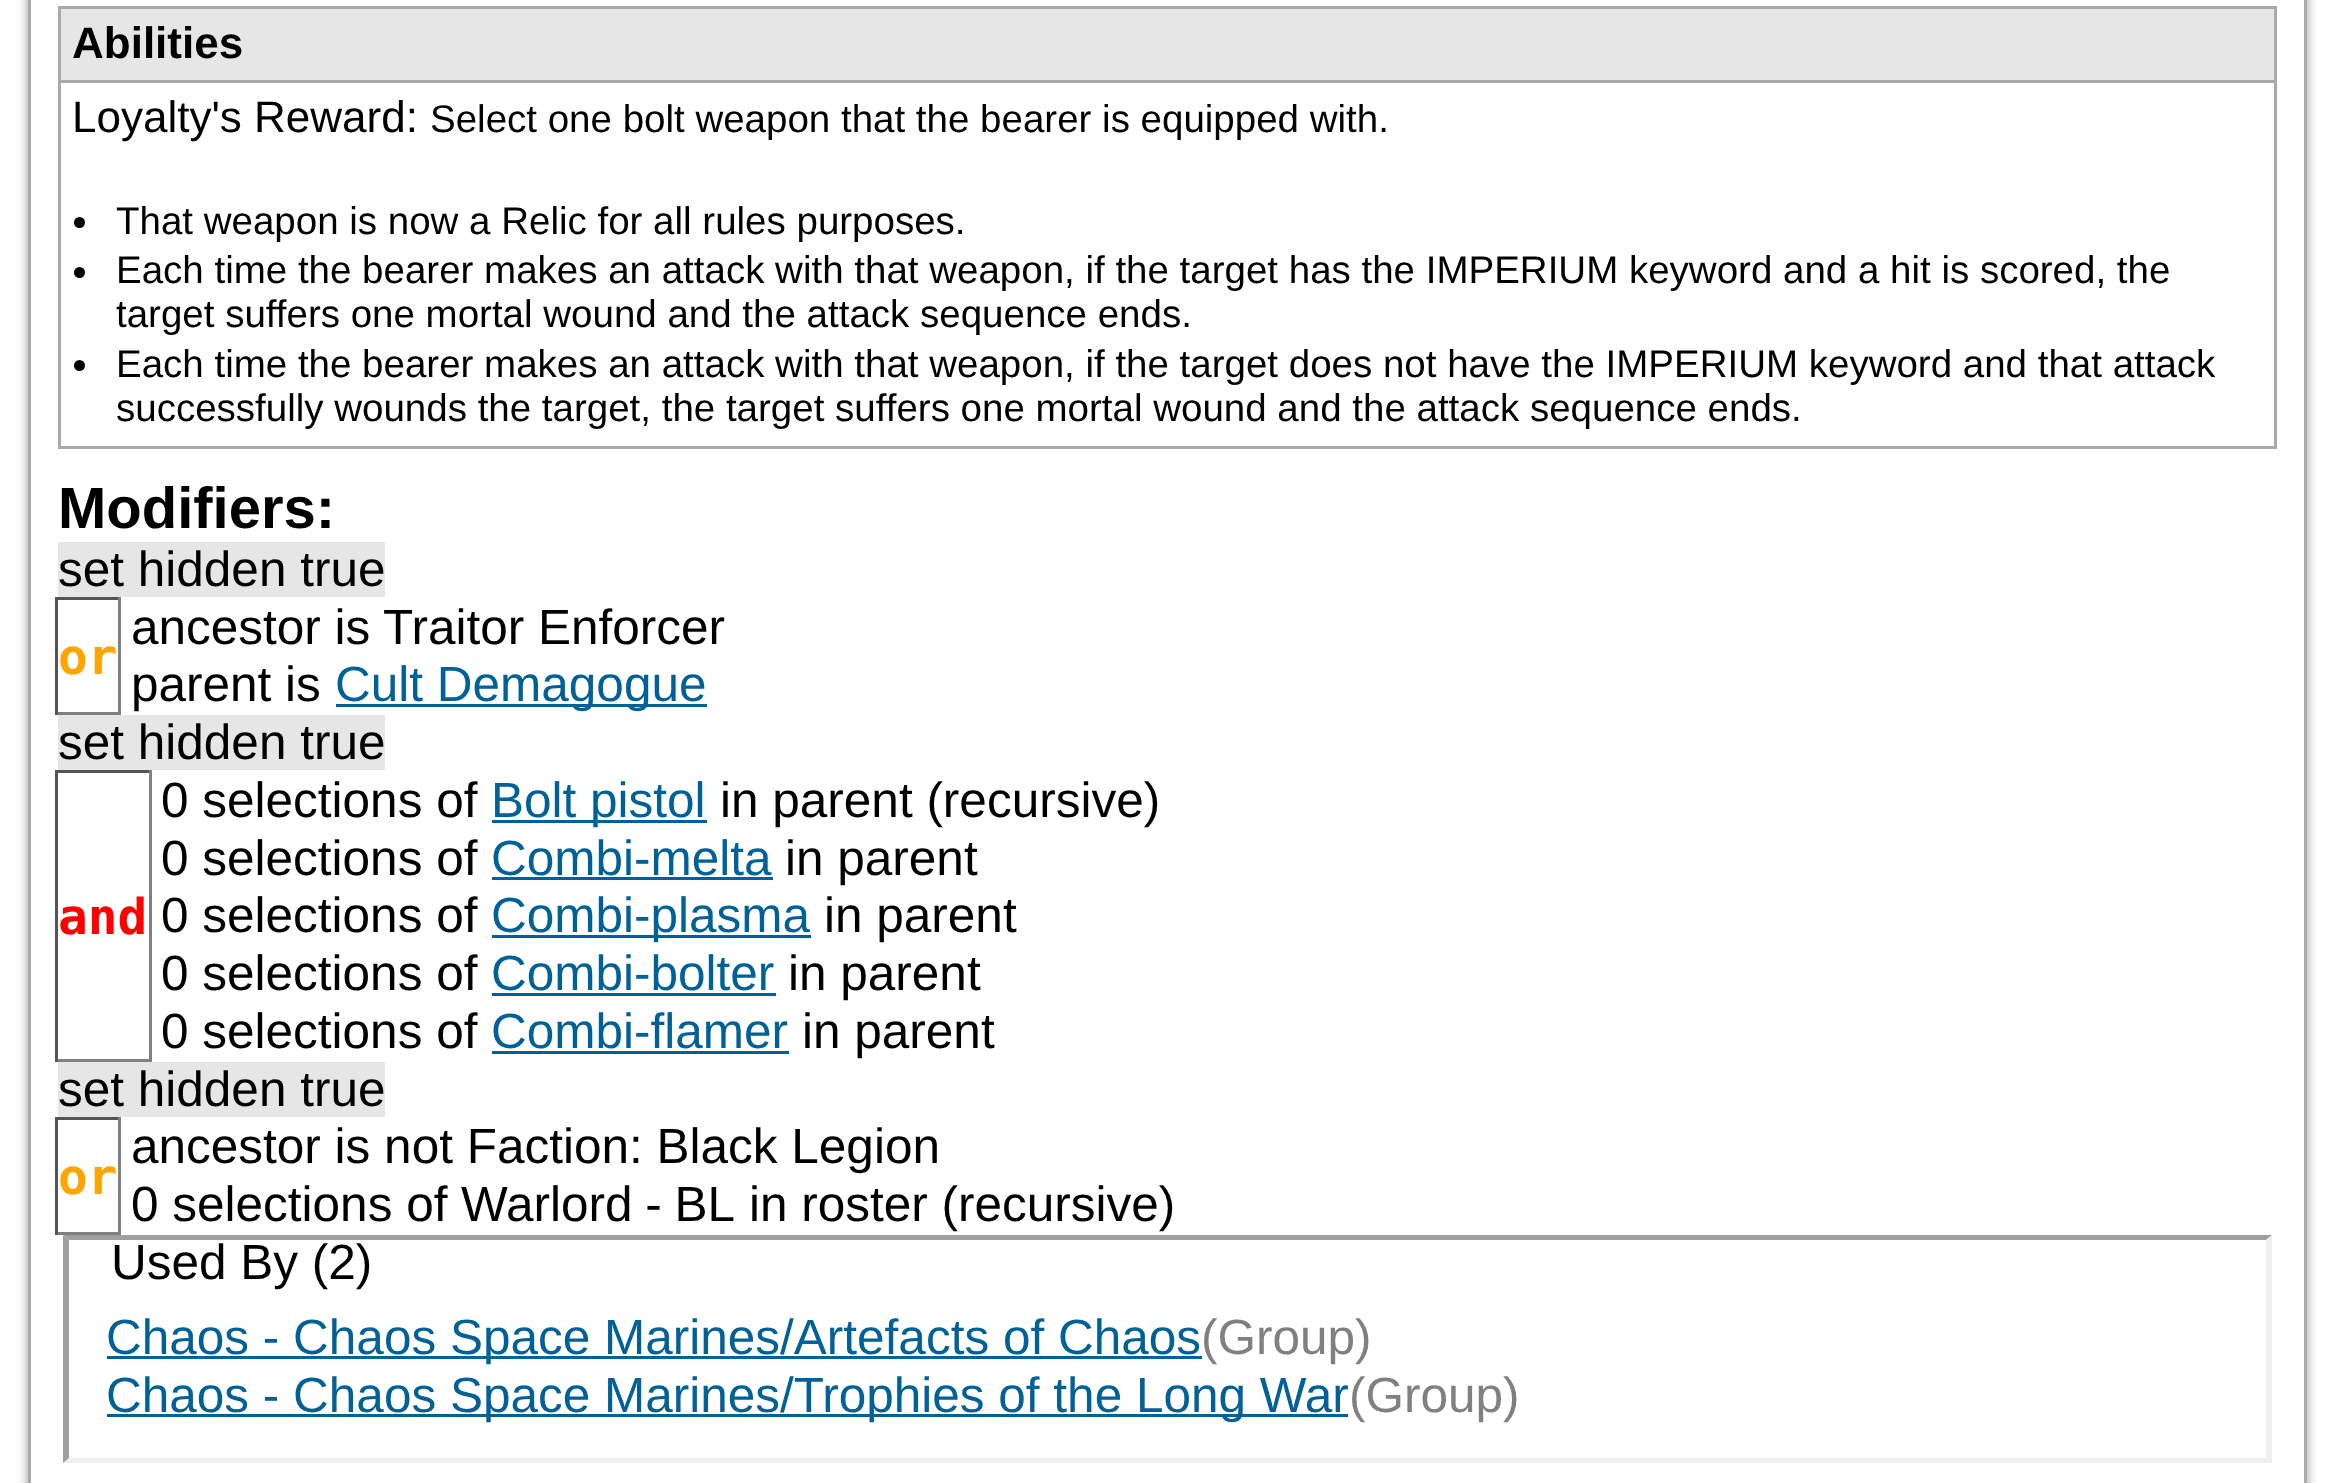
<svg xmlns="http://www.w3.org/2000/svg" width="2333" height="1483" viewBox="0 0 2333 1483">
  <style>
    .t1 { font: bold 44px Liberation Sans; fill: #000; }
    .t2 { font: 44px Liberation Sans; fill: #000; }
    .t3 { font: 38.5px Liberation Sans; fill: #000; }
    .t4 { font: bold 58px Liberation Sans; fill: #000; }
    .t5 { font: 49.5px Liberation Sans; fill: #000; }
    .t6 { font: bold 49.5px DejaVu Sans Mono; fill: #ffa500; }
    .t7 { font: 49.5px Liberation Sans; fill: #006199; }
    .t8 { font: bold 49.5px DejaVu Sans Mono; fill: #f00; }
    .t9 { font: 49.5px Liberation Sans; fill: #808080; }
  </style>
  <defs>
    <clipPath id="clip1"><path d="M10 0H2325V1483H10ZM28-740H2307V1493H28Z" clip-rule="evenodd"/></clipPath>
  </defs>
  <rect width="100%" height="100%" fill="#fff"/>
  <g clip-path="url(#clip1)">
    <rect x="28" y="-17" width="2279" height="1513" fill="#00000066" filter="blur(5.5px)"/>
  </g>
  <rect x="29.5" y="-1.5" width="2276" height="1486" fill="none" stroke="#aaa" stroke-width="3"/>
  <rect x="58" y="446" width="2219" height="3" fill="#aaa"/>
  <rect x="61" y="9" width="2213" height="71" fill="#e6e6e6"/>
  <rect x="58" y="6" width="2219" height="3" fill="#aaa"/>
  <rect x="58" y="80" width="2219" height="3" fill="#aaa"/>
  <rect x="2274" y="80" width="3" height="368" fill="#aaa"/>
  <rect x="2274" y="6" width="3" height="77" fill="#aaa"/>
  <rect x="58" y="80" width="3" height="368" fill="#aaa"/>
  <rect x="58" y="6" width="3" height="77" fill="#aaa"/>
  <text x="72" y="58" class="t1">Abilities</text>
  <text x="72" y="132" class="t2">Loyalty's Reward:</text>
  <text x="430" y="132" class="t3">Select one bolt weapon that the bearer is equipped with.</text>
  <circle cx="79.5" cy="222.5" r="5.5" fill="#000"/>
  <text x="116" y="234" class="t3">That weapon is now a Relic for all rules purposes.</text>
  <circle cx="79.5" cy="272.5" r="5.5" fill="#000"/>
  <text x="116" y="283" class="t3">Each time the bearer makes an attack with that weapon, if the target has the IMPERIUM keyword and a hit is scored, the</text>
  <text x="116" y="327" class="t3">target suffers one mortal wound and the attack sequence ends.</text>
  <circle cx="79.5" cy="365.5" r="5.5" fill="#000"/>
  <text x="116" y="377" class="t3">Each time the bearer makes an attack with that weapon, if the target does not have the IMPERIUM keyword and that attack</text>
  <text x="116" y="421" class="t3">successfully wounds the target, the target suffers one mortal wound and the attack sequence ends.</text>
  <text x="58" y="528" class="t4">Modifiers:</text>
  <rect x="58" y="542" width="327" height="55" fill="#e6e6e6"/>
  <text x="58" y="586" class="t5">set hidden true</text>
  <rect x="55" y="597" width="66" height="3" fill="#555"/>
  <rect x="118" y="597" width="3" height="118" fill="#808080"/>
  <rect x="55" y="712" width="66" height="3" fill="#808080"/>
  <rect x="55" y="597" width="3" height="118" fill="#555"/>
  <text x="58" y="674" class="t6">or</text>
  <text x="131" y="644" class="t5">ancestor is</text>
  <text x="383" y="644" class="t5">Traitor Enforcer</text>
  <text x="131" y="701" class="t5">parent is</text>
  <rect x="336" y="704" width="371" height="3" fill="#006199"/>
  <text x="335" y="701" class="t7">Cult Demagogue</text>
  <rect x="58" y="715" width="327" height="55" fill="#e6e6e6"/>
  <text x="58" y="759" class="t5">set hidden true</text>
  <rect x="55" y="770" width="96" height="3" fill="#555"/>
  <rect x="149" y="770" width="3" height="292" fill="#808080"/>
  <rect x="55" y="1059" width="96" height="3" fill="#808080"/>
  <rect x="55" y="770" width="3" height="292" fill="#555"/>
  <text x="58" y="934" class="t8">and</text>
  <text x="161" y="817" class="t5">0 selections of</text>
  <rect x="492" y="820" width="215" height="3" fill="#006199"/>
  <text x="491" y="817" class="t7">Bolt pistol</text>
  <text x="720" y="817" class="t5">in parent (recursive)</text>
  <text x="161" y="875" class="t5">0 selections of</text>
  <text x="491" y="875" class="t7">Combi-melta</text>
  <rect x="492" y="877" width="281" height="3" fill="#006199"/>
  <text x="785" y="875" class="t5">in parent</text>
  <text x="161" y="932" class="t5">0 selections of</text>
  <rect x="492" y="935" width="319" height="3" fill="#006199"/>
  <text x="491" y="932" class="t7">Combi-plasma</text>
  <text x="824" y="932" class="t5">in parent</text>
  <text x="161" y="990" class="t5">0 selections of</text>
  <text x="491" y="990" class="t7">Combi-bolter</text>
  <rect x="492" y="993" width="284" height="3" fill="#006199"/>
  <text x="788" y="990" class="t5">in parent</text>
  <text x="161" y="1048" class="t5">0 selections of</text>
  <text x="491" y="1048" class="t7">Combi-flamer</text>
  <rect x="492" y="1051" width="297" height="3" fill="#006199"/>
  <text x="802" y="1048" class="t5">in parent</text>
  <rect x="58" y="1062" width="327" height="55" fill="#e6e6e6"/>
  <text x="58" y="1106" class="t5">set hidden true</text>
  <rect x="55" y="1117" width="66" height="3" fill="#555"/>
  <rect x="118" y="1117" width="3" height="118" fill="#808080"/>
  <rect x="55" y="1232" width="66" height="3" fill="#808080"/>
  <rect x="55" y="1117" width="3" height="118" fill="#555"/>
  <text x="58" y="1194" class="t6">or</text>
  <text x="131" y="1163" class="t5">ancestor is not Faction: Black Legion</text>
  <text x="131" y="1221" class="t5">0 selections of</text>
  <text x="461" y="1221" word-spacing="-1" class="t5">Warlord - BL</text>
  <text x="749" y="1221" class="t5">in roster (recursive)</text>
  <path d="M63 1235H2272L2266 1240H69Z" fill="#9f9f9f"/>
  <path d="M2272 1235V1463L2266 1458V1240Z" fill="#efefef"/>
  <path d="M2272 1463H63L69 1458H2266Z" fill="#efefef"/>
  <path d="M63 1463V1235L69 1240V1458Z" fill="#9f9f9f"/>
  <text x="111" y="1279" class="t5">Used By (2)</text>
  <rect x="107" y="1356" width="1095" height="3" fill="#006199"/>
  <text x="106" y="1354" class="t7">Chaos - Chaos Space Marines/Artefacts of Chaos</text>
  <text x="1201" y="1354" class="t9">(Group)</text>
  <rect x="107" y="1414" width="1241" height="3" fill="#006199"/>
  <text x="106" y="1412" class="t7">Chaos - Chaos Space Marines/Trophies of the Long War</text>
  <text x="1349" y="1412" class="t9">(Group)</text>
</svg>
